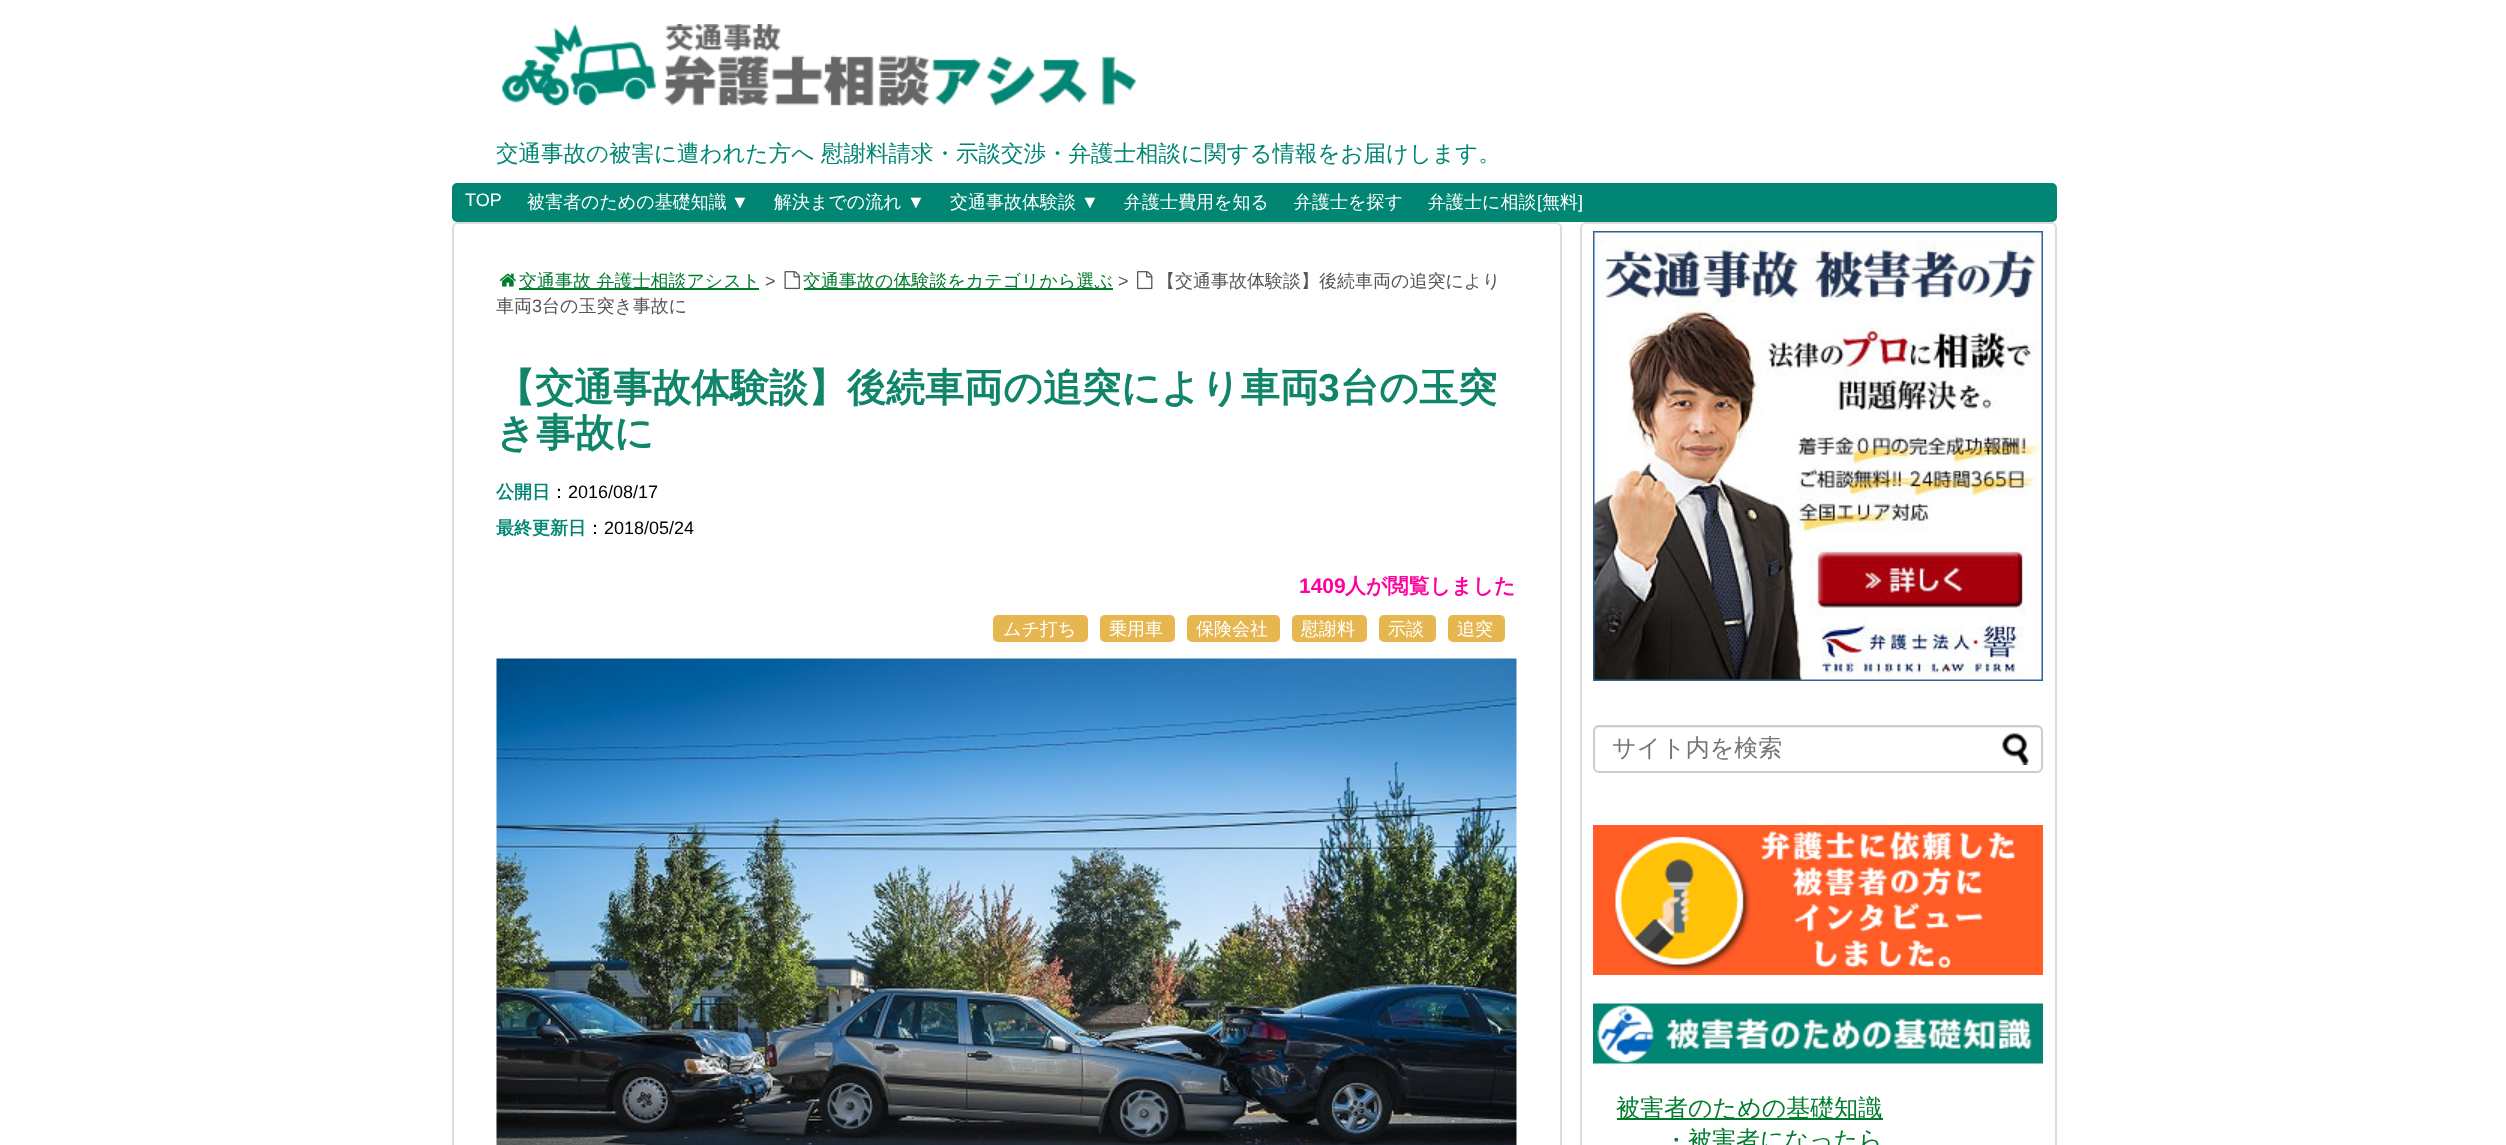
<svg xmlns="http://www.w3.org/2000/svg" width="2506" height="1145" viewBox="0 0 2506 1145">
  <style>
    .t1 { font: 500 22.5px WenQuanYi Zen Hei; fill: #008672; }
    .t2 { font: 18px Liberation Sans; fill: #fff; }
    .t3 { font: 500 18px WenQuanYi Zen Hei; fill: #fff; }
    .t4 { font: 500 18px WenQuanYi Zen Hei; fill: #007c2d; }
    .t5 { font: 18px Liberation Sans; fill: #555; }
    .t6 { font: 500 18px WenQuanYi Zen Hei; fill: #555; }
    .t7 { font: bold 39px WenQuanYi Zen Hei; fill: #10856a; }
    .t8 { font: bold 39px Liberation Sans; fill: #10856a; }
    .t9 { font: bold 18px WenQuanYi Zen Hei; fill: #008672; }
    .t10 { font: 500 18px WenQuanYi Zen Hei; fill: #000; }
    .t11 { font: 18px Liberation Sans; fill: #000; }
    .t12 { font: bold 21px Liberation Sans; fill: #ff009e; }
    .t13 { font: bold 21px WenQuanYi Zen Hei; fill: #ff009e; }
    .t14 { font: 500 24px WenQuanYi Zen Hei; fill: #757575; }
    .t15 { font: 500 24px WenQuanYi Zen Hei; fill: #007c2d; }
  </style>
  <rect width="100%" height="100%" fill="#fff"/>
  <image x="501" y="24" width="636" height="83" href="images/1.png"/>
  <text x="496" y="161" class="t1">交通事故の被害に遭われた方へ 慰謝料請求・示談交渉・弁護士相談に関する情報をお届けします。</text>
  <rect x="453" y="184" width="1603" height="37" rx="4" fill="#008672" stroke="#008672" stroke-width="2"/>
  <text x="465" y="206" class="t2">TOP</text>
  <text x="527" y="208" class="t3">被害者のための基礎知識</text>
  <text x="731" y="208" class="t2">▼</text>
  <text x="774" y="208" class="t3">解決までの流れ</text>
  <text x="907" y="208" class="t2">▼</text>
  <text x="950" y="208" class="t3">交通事故体験談</text>
  <text x="1081" y="208" class="t2">▼</text>
  <text x="1124" y="208" class="t3">弁護士費用を知る</text>
  <text x="1294" y="208" class="t3">弁護士を探す</text>
  <text x="1428" y="208" class="t3">弁護士に相談</text>
  <text x="1537" y="208" class="t2">[</text>
  <text x="1542" y="208" class="t3">無料</text>
  <text x="1578" y="208" class="t2">]</text>
  <rect x="453" y="223" width="1108" height="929" rx="5" fill="none" stroke="#ddd" stroke-width="2"/>
  <image x="499" y="273" width="17" height="14" href="images/2.png"/>
  <rect x="519" y="288" width="240" height="2" fill="#007c2d"/>
  <text x="519" y="287" class="t4">交通事故 弁護士相談アシスト</text>
  <text x="765" y="287" class="t5">&gt;</text>
  <image x="784" y="271" width="16" height="19" href="images/3.png"/>
  <rect x="804" y="288" width="309" height="2" fill="#007c2d"/>
  <text x="803" y="287" class="t4">交通事故の体験談をカテゴリから選ぶ</text>
  <text x="1118" y="287" class="t5">&gt;</text>
  <image x="1137" y="271" width="16" height="19" href="images/4.png"/>
  <text x="1157" y="287" class="t6">【交通事故体験談】後続車両の追突により</text>
  <text x="496" y="312" class="t6">車両</text>
  <text x="532" y="312" class="t5">3</text>
  <text x="542" y="312" class="t6">台の玉突き事故に</text>
  <text x="496" y="401" class="t7">【交通事故体験談】後続車両の追突により車両</text>
  <text x="1318" y="401" class="t8">3</text>
  <text x="1340" y="401" class="t7">台の玉突</text>
  <text x="496" y="446" class="t7">き事故に</text>
  <text x="496" y="498" class="t9">公開日</text>
  <text x="550" y="498" class="t10">：</text>
  <text x="568" y="498" class="t11">2016/08/17</text>
  <text x="496" y="534" class="t9">最終更新日</text>
  <text x="586" y="534" class="t10">：</text>
  <text x="604" y="534" class="t11">2018/05/24</text>
  <text x="1299" y="593" class="t12">1409</text>
  <text x="1345" y="593" class="t13">人が閲覧しました</text>
  <rect x="993" y="615" width="95" height="27" rx="5" fill="#e6b751"/>
  <text x="1003" y="635" class="t3">ムチ打ち</text>
  <rect x="1100" y="615" width="75" height="27" rx="5" fill="#e6b751"/>
  <text x="1109" y="635" class="t3">乗用車</text>
  <rect x="1187" y="615" width="93" height="27" rx="5" fill="#e6b751"/>
  <text x="1196" y="635" class="t3">保険会社</text>
  <rect x="1292" y="615" width="75" height="27" rx="5" fill="#e6b751"/>
  <text x="1301" y="635" class="t3">慰謝料</text>
  <rect x="1379" y="615" width="57" height="27" rx="5" fill="#e6b751"/>
  <text x="1388" y="635" class="t3">示談</text>
  <rect x="1448" y="615" width="57" height="27" rx="5" fill="#e6b751"/>
  <text x="1457" y="635" class="t3">追突</text>
  <image x="496" y="658" width="1021" height="487" href="images/5.png"/>
  <rect x="1581" y="223" width="475" height="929" rx="5" fill="none" stroke="#ddd" stroke-width="2"/>
  <image x="1593" y="231" width="450" height="450" href="images/6.png"/>
  <path d="M1599 728H2037C2039 728 2042 730 2042 732V731C2042 728 2040 726 2037 726H1600C1598 726 1596 728 1595 730C1596 729 1598 728 1599 728Z" fill="#ececec"/>
  <rect x="1594" y="726" width="448" height="46" rx="5" fill="none" stroke="#ccc" stroke-width="2"/>
  <text x="1612" y="756" class="t14">サイト内を検索</text>
  <image x="2002" y="733" width="27" height="32" href="images/7.png"/>
  <image x="1593" y="825" width="450" height="150" href="images/8.png"/>
  <image x="1593" y="1003" width="450" height="61" href="images/9.png"/>
  <rect x="1617" y="1118" width="266" height="2" fill="#007c2d"/>
  <text x="1616" y="1116" class="t15">被害者のための基礎知識</text>
  <text x="1664" y="1148" class="t15">・被害者になったら</text>
</svg>
